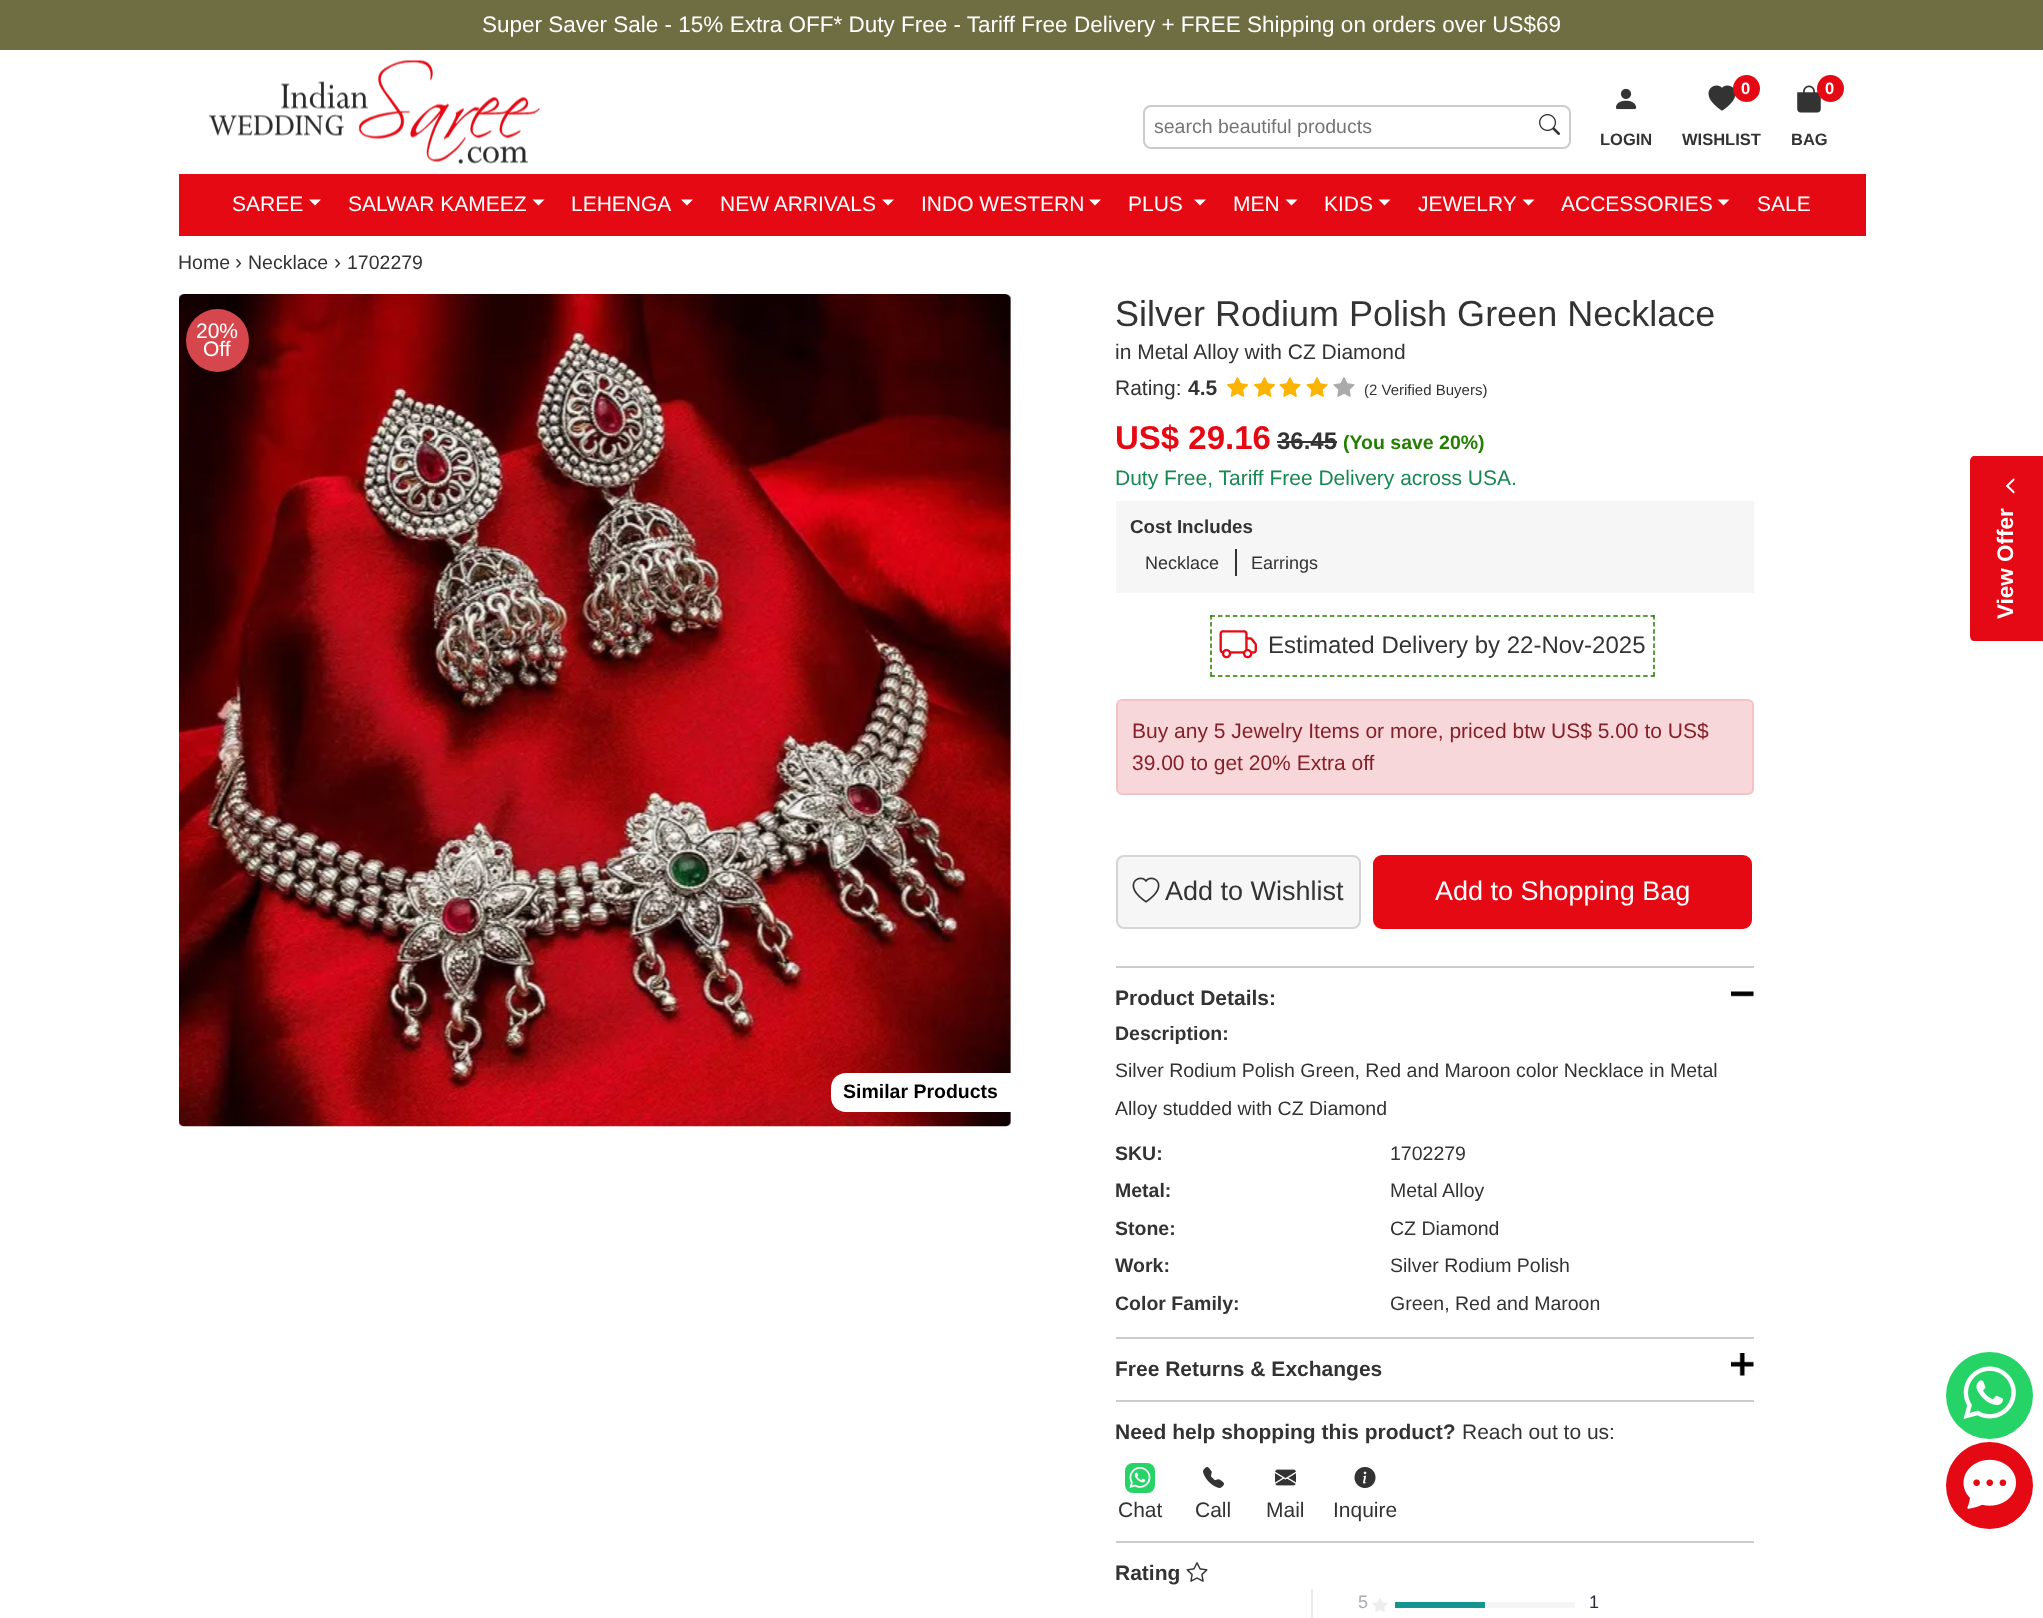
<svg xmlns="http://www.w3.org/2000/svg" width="2043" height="1618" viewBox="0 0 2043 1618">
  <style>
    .t1 { font: 22.5px Liberation Sans; fill: #fff; }
    .t2 { font: 19.5px Liberation Sans; fill: #757575; }
    .t3 { font: bold 16.5px Liberation Sans; fill: #333; }
    .t4 { font: bold 16.5px Liberation Sans; fill: #fff; }
    .t5 { font: 21px Liberation Sans; fill: #fff; }
    .t6 { font: 19.5px Liberation Sans; fill: #333; }
    .t7 { font: 21px Liberation Sans; fill: #333; }
    .t8 { font: bold 19.5px Liberation Sans; fill: #000; }
    .t9 { font: 36px Liberation Sans; fill: #333; }
    .t10 { font: bold 21px Liberation Sans; fill: #333; }
    .t11 { font: 15px Liberation Sans; fill: #333; }
    .t12 { font: bold 33px Liberation Sans; fill: #e50914; }
    .t13 { font: bold 24px Liberation Sans; fill: #333; }
    .t14 { font: bold 19.5px Liberation Sans; fill: #247e02; }
    .t15 { font: 21px Liberation Sans; fill: #198754; }
    .t16 { font: bold 18.75px Liberation Sans; fill: #333; }
    .t17 { font: 18px Liberation Sans; fill: #333; }
    .t18 { font: 24px Liberation Sans; fill: #333; }
    .t19 { font: 21px Liberation Sans; fill: #842029; }
    .t20 { font: 27px Liberation Sans; fill: #333; }
    .t21 { font: 27px Liberation Sans; fill: #fff; }
    .t22 { font: bold 19.5px Liberation Sans; fill: #333; }
    .t23 { font: 18px Liberation Sans; fill: #a9abb3; }
    .t24 { font: 18px Liberation Sans; fill: #282c3f; }
    .t25 { font: bold 22.5px Liberation Sans; fill: #fff; }
  </style>
  <rect width="100%" height="100%" fill="#fff"/>
  <rect x="0" y="0" width="2043" height="50" fill="#6f6d42"/>
  <text x="482" y="32" class="t1">Super Saver Sale - 15% Extra OFF* Duty Free - Tariff Free Delivery + FREE Shipping on orders over US$69</text>
  <image x="209" y="60" width="331" height="104" href="images/1.png"/>
  <rect x="1144" y="106" width="426" height="42" rx="7" fill="none" stroke="#ccc" stroke-width="2"/>
  <text x="1154" y="133" class="t2">search beautiful products</text>
  <image x="1539" y="114" width="21" height="21" href="images/2.png"/>
  <image x="1615" y="88" width="22" height="22" href="images/3.png"/>
  <text x="1600" y="145" class="t3">LOGIN</text>
  <image x="1708" y="85" width="28" height="26" href="images/4.png"/>
  <circle cx="1746.5" cy="88.5" r="13.5" fill="#e50914"/>
  <text x="1741" y="94" class="t4">0</text>
  <text x="1682" y="145" class="t3">WISHLIST</text>
  <image x="1797" y="85" width="24" height="28" href="images/5.png"/>
  <circle cx="1830.5" cy="88.5" r="13.5" fill="#e50914"/>
  <text x="1825" y="94" class="t4">0</text>
  <text x="1791" y="145" class="t3">BAG</text>
  <rect x="179" y="174" width="1687" height="62" fill="#e50914"/>
  <text x="232" y="211" class="t5">SAREE</text>
  <path d="M309 199.5H321L315 205.5Z" fill="#fff"/>
  <text x="348" y="211" class="t5">SALWAR KAMEEZ</text>
  <path d="M532.5 199.5H544.5L538.5 205.5Z" fill="#fff"/>
  <text x="571" y="211" class="t5">LEHENGA</text>
  <path d="M681 199.5H693L687 205.5Z" fill="#fff"/>
  <text x="720" y="211" class="t5">NEW ARRIVALS</text>
  <path d="M882 199.5H894L888 205.5Z" fill="#fff"/>
  <text x="921" y="211" class="t5">INDO WESTERN</text>
  <path d="M1089 199.5H1101L1095 205.5Z" fill="#fff"/>
  <text x="1128" y="211" class="t5">PLUS</text>
  <path d="M1194 199.5H1206L1200 205.5Z" fill="#fff"/>
  <text x="1233" y="211" class="t5">MEN</text>
  <path d="M1285.5 199.5H1297.5L1291.5 205.5Z" fill="#fff"/>
  <text x="1324" y="211" class="t5">KIDS</text>
  <path d="M1378.5 199.5H1390.5L1384.5 205.5Z" fill="#fff"/>
  <text x="1418" y="211" class="t5">JEWELRY</text>
  <path d="M1522.5 199.5H1534.5L1528.5 205.5Z" fill="#fff"/>
  <text x="1561" y="211" class="t5">ACCESSORIES</text>
  <path d="M1717.5 199.5H1729.5L1723.5 205.5Z" fill="#fff"/>
  <text x="1757" y="211" class="t5">SALE</text>
  <text x="178" y="269" class="t6">Home</text>
  <text x="235" y="269" class="t7">›</text>
  <text x="248" y="269" class="t6">Necklace</text>
  <text x="334" y="269" class="t7">›</text>
  <text x="347" y="269" class="t6">1702279</text>
  <image x="179" y="294" width="832" height="833" href="images/6.png"/>
  <circle cx="217.5" cy="340.5" r="31.5" fill="#d6474d"/>
  <text x="196" y="338" class="t5">20%</text>
  <text x="203" y="356" class="t5">Off</text>
  <path d="M846 1073H1011V1112H846C837.5 1112 831 1105.5 831 1097V1088C831 1079.5 837.5 1073 846 1073Z" fill="#fff"/>
  <text x="843" y="1098" class="t8">Similar Products</text>
  <text x="1115" y="326" class="t9">Silver Rodium Polish Green Necklace</text>
  <text x="1115" y="359" class="t7">in Metal Alloy with CZ Diamond</text>
  <text x="1115" y="395" class="t7">Rating:</text>
  <text x="1188" y="395" class="t10">4.5</text>
  <image x="1227" y="377" width="21" height="20" href="images/7.png"/>
  <image x="1254" y="377" width="21" height="20" href="images/7.png"/>
  <image x="1279" y="377" width="22" height="20" href="images/8.png"/>
  <image x="1306" y="377" width="22" height="20" href="images/8.png"/>
  <image x="1333" y="377" width="22" height="20" href="images/9.png"/>
  <text x="1364" y="395" class="t11">(2 Verified Buyers)</text>
  <text x="1115" y="449" class="t12">US$ 29.16</text>
  <text x="1277" y="449" class="t13">36.45</text>
  <rect x="1277" y="441" width="60" height="2" fill="#333"/>
  <text x="1343" y="449" class="t14">(You save 20%)</text>
  <text x="1115" y="485" class="t15">Duty Free, Tariff Free Delivery across USA.</text>
  <rect x="1116" y="501" width="638" height="92" fill="#f6f6f6"/>
  <text x="1130" y="533" class="t16">Cost Includes</text>
  <rect x="1235" y="549" width="2" height="27" fill="#333"/>
  <text x="1145" y="569" class="t17">Necklace</text>
  <text x="1251" y="569" class="t17">Earrings</text>
  <path d="M1210.5 616H1654.5" fill="none" stroke="#247e02" stroke-width="1.5" stroke-dasharray="4.5 2.96"/>
  <path d="M1654 615V676.5" fill="none" stroke="#247e02" stroke-width="1.5" stroke-dasharray="4.5 2.62"/>
  <path d="M1210.5 676H1654.5" fill="none" stroke="#247e02" stroke-width="1.5" stroke-dasharray="4.5 2.96"/>
  <path d="M1211 615V676.5" fill="none" stroke="#247e02" stroke-width="1.5" stroke-dasharray="4.5 2.62"/>
  <image x="1219" y="630" width="38" height="29" href="images/10.png"/>
  <text x="1268" y="653" class="t18">Estimated Delivery by 22-Nov-2025</text>
  <rect x="1117" y="700" width="636" height="94" rx="5" fill="#f8d7da" stroke="#f5c2c7" stroke-width="2"/>
  <text x="1132" y="738" class="t19">Buy any 5 Jewelry Items or more, priced btw US$ 5.00 to US$</text>
  <text x="1132" y="770" class="t19">39.00 to get 20% Extra off</text>
  <rect x="1117" y="856" width="243" height="72" rx="7" fill="#f6f6f6" stroke="#d4d5d9" stroke-width="2"/>
  <image x="1132" y="877" width="28" height="26" href="images/11.png"/>
  <text x="1165" y="900" class="t20">Add to Wishlist</text>
  <rect x="1374" y="856" width="377" height="72" rx="8" fill="#e50914" stroke="#e50914" stroke-width="2"/>
  <text x="1435" y="900" class="t21">Add to Shopping Bag</text>
  <rect x="1116" y="966" width="638" height="2" fill="#ccc"/>
  <text x="1115" y="1005" class="t10">Product Details:</text>
  <image x="1731" y="991" width="23" height="6" href="images/12.png"/>
  <text x="1115" y="1040" class="t22">Description:</text>
  <text x="1115" y="1077" class="t6">Silver Rodium Polish Green, Red and Maroon color Necklace in Metal</text>
  <text x="1115" y="1115" class="t6">Alloy studded with CZ Diamond</text>
  <text x="1115" y="1160" class="t22">SKU:</text>
  <text x="1390" y="1160" class="t6">1702279</text>
  <text x="1115" y="1197" class="t22">Metal:</text>
  <text x="1390" y="1197" class="t6">Metal Alloy</text>
  <text x="1115" y="1235" class="t22">Stone:</text>
  <text x="1390" y="1235" class="t6">CZ Diamond</text>
  <text x="1115" y="1272" class="t22">Work:</text>
  <text x="1390" y="1272" class="t6">Silver Rodium Polish</text>
  <text x="1115" y="1310" class="t22">Color Family:</text>
  <text x="1390" y="1310" class="t6">Green, Red and Maroon</text>
  <rect x="1116" y="1337" width="638" height="2" fill="#ccc"/>
  <text x="1115" y="1376" class="t10">Free Returns &amp; Exchanges</text>
  <image x="1731" y="1353" width="23" height="23" href="images/13.png"/>
  <rect x="1116" y="1400" width="638" height="2" fill="#ccc"/>
  <text x="1115" y="1439" class="t10">Need help shopping this product?</text>
  <text x="1462" y="1439" class="t7">Reach out to us:</text>
  <rect x="1125" y="1463" width="30" height="30" rx="8" fill="#25d366"/>
  <image x="1129" y="1467" width="22" height="21" href="images/14.png"/>
  <text x="1118" y="1517" class="t7">Chat</text>
  <image x="1203" y="1467" width="21" height="21" href="images/15.png"/>
  <text x="1195" y="1517" class="t7">Call</text>
  <image x="1275" y="1469" width="21" height="17" href="images/16.png"/>
  <text x="1266" y="1517" class="t7">Mail</text>
  <image x="1354" y="1467" width="22" height="21" href="images/17.png"/>
  <text x="1333" y="1517" class="t7">Inquire</text>
  <rect x="1116" y="1541" width="638" height="2" fill="#ccc"/>
  <text x="1115" y="1580" class="t10">Rating</text>
  <image x="1186" y="1562" width="22" height="20" href="images/18.png"/>
  <rect x="1311" y="1589" width="2" height="29" fill="#eaeaec"/>
  <text x="1358" y="1608" class="t23">5</text>
  <image x="1372" y="1598" width="16" height="14" href="images/19.png"/>
  <rect x="1485" y="1602" width="90" height="6" fill="#f5f5f6"/>
  <rect x="1395" y="1602" width="90" height="6" fill="#14958f"/>
  <text x="1589" y="1608" class="t24">1</text>
  <path d="M1970 636V461C1970 458 1972 456 1974 456H2043V641H1974C1972 641 1970 639 1970 636Z" fill="#e50815"/>
  <image x="2006" y="478" width="9" height="16" href="images/20.png"/>
  <text x="2013" y="619" transform="rotate(-90 2013 619)" class="t25">View Offer</text>
  <circle cx="1989.5" cy="1395.5" r="43.5" fill="#25d366"/>
  <image x="1963" y="1366" width="53" height="53" href="images/21.png"/>
  <circle cx="1989.5" cy="1485.5" r="43.5" fill="#e50914"/>
  <image x="1963" y="1459" width="53" height="50" href="images/22.png"/>
</svg>
